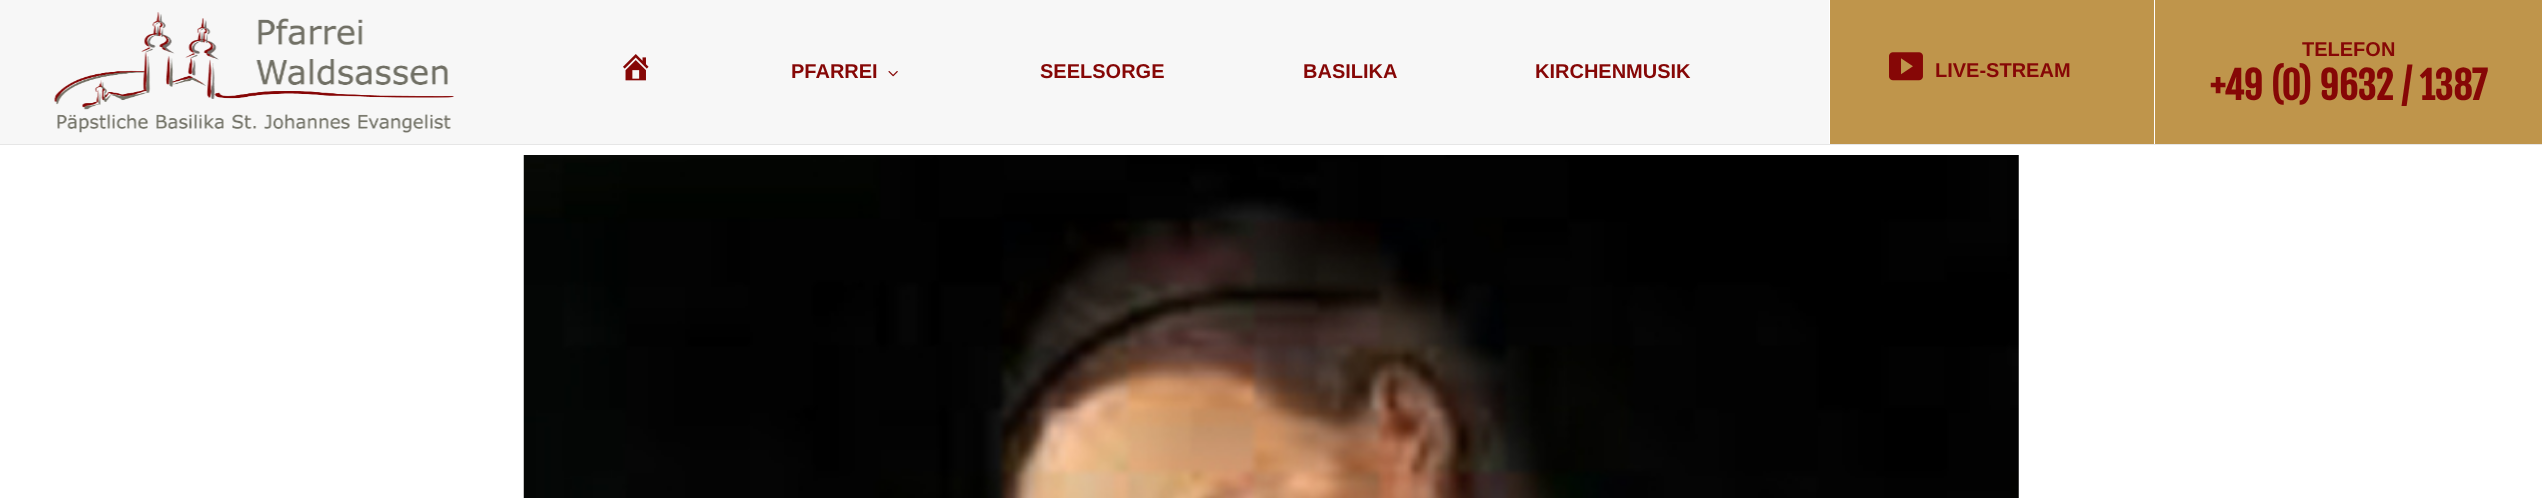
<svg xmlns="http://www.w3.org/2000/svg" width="2542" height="498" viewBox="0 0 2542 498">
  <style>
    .t1 { font: bold 20px Liberation Sans; fill: #860706; }
    .t2 { font: bold 37.5px Fjalla One; fill: #860706; }
  </style>
  <rect width="100%" height="100%" fill="#fff"/>
  <path d="M0 144V145H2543V1H2542V144Z" fill="#e6e6e6"/>
  <rect x="0" y="0" width="1829" height="144" fill="#f7f7f7"/>
  <image x="54" y="12" width="400" height="121" href="images/1.png"/>
  <image x="623" y="54" width="26" height="27" href="images/2.png"/>
  <text x="791" y="78" class="t1">PFARREI</text>
  <image x="888" y="71" width="10" height="6" href="images/3.png"/>
  <text x="1040" y="78" class="t1">SEELSORGE</text>
  <text x="1303" y="78" class="t1">BASILIKA</text>
  <text x="1535" y="78" class="t1">KIRCHENMUSIK</text>
  <rect x="1830" y="0" width="324" height="144" fill="#bf954b"/>
  <image x="1889" y="52" width="34" height="29" href="images/4.png"/>
  <text x="1935" y="77" class="t1">LIVE-STREAM</text>
  <rect x="2155" y="0" width="387" height="144" fill="#bf954b"/>
  <text x="2302" y="56" class="t1">TELEFON</text>
  <text x="2210" y="100" class="t2">+49 (0) 9632 / 1387</text>
  <image x="523" y="155" width="1496" height="343" href="images/5.png"/>
</svg>
